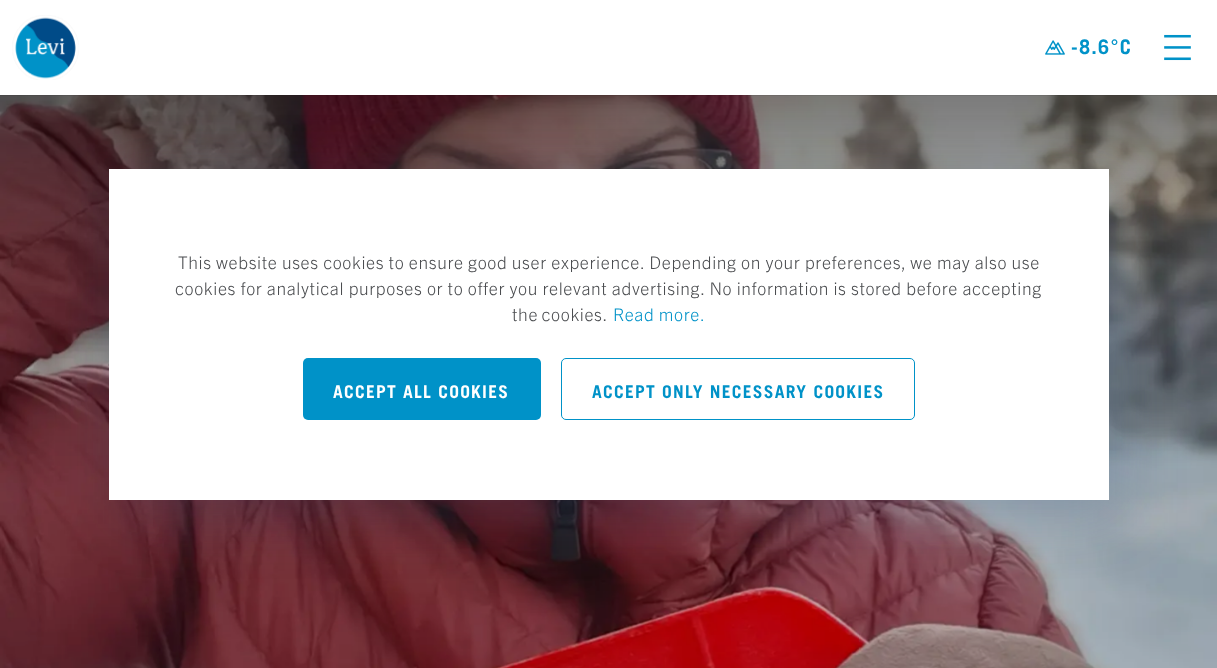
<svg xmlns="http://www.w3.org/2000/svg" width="1217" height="668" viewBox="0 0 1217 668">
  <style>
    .t1 { font: bold 20px Trade Gothic; letter-spacing: 1.25px; fill: #0092c8; }
    .t2 { font: 300 17.5px 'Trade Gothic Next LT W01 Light'; letter-spacing: 0.62px; fill: #4b4d50; }
    .t3 { font: 300 17.5px 'Trade Gothic Next LT W01 Light'; letter-spacing: 0.62px; fill: #0092c8; }
    .t4 { font: bold 17.5px Trade Gothic; letter-spacing: 1.25px; fill: #fff; }
    .t5 { font: bold 17.5px Trade Gothic; letter-spacing: 1.25px; fill: #0092c8; }
  </style>
  <rect width="100%" height="100%" fill="#fff"/>
  <image x="0" y="95" width="1217" height="573" href="images/4.png"/>
  <path d="M0 95V96H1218V1V95Z" fill="#00000012"/>
  <image x="12" y="15" width="67" height="65" href="images/1.png"/>
  <image x="1045" y="40" width="20" height="15" href="images/2.png"/>
  <text x="1071" y="54" class="t1">-8.6°C</text>
  <image x="1164" y="34" width="27" height="27" href="images/3.png"/>
  <rect x="121" y="181" width="1000" height="332" fill="#2d517b40" filter="blur(31px)"/>
  <rect x="109" y="169" width="1000" height="331" fill="#fff"/>
  <text x="178" y="269" class="t2">This website uses cookies to ensure good user experience. Depending on your preferences, we may also use</text>
  <text x="175" y="295" class="t2">cookies for analytical purposes or to offer you relevant advertising. No information is stored before accepting</text>
  <text x="512" y="321" word-spacing="-1" class="t2">the cookies.</text>
  <text x="613" y="321" class="t3">Read more.</text>
  <rect x="303" y="358" width="238" height="62" rx="5" fill="#0092c8"/>
  <text x="333" y="398" class="t4">ACCEPT ALL COOKIES</text>
  <rect x="561.5" y="358.5" width="353" height="61" rx="4.5" fill="none" stroke="#0092c8"/>
  <text x="592" y="398" class="t5">ACCEPT ONLY NECESSARY COOKIES</text>
</svg>
